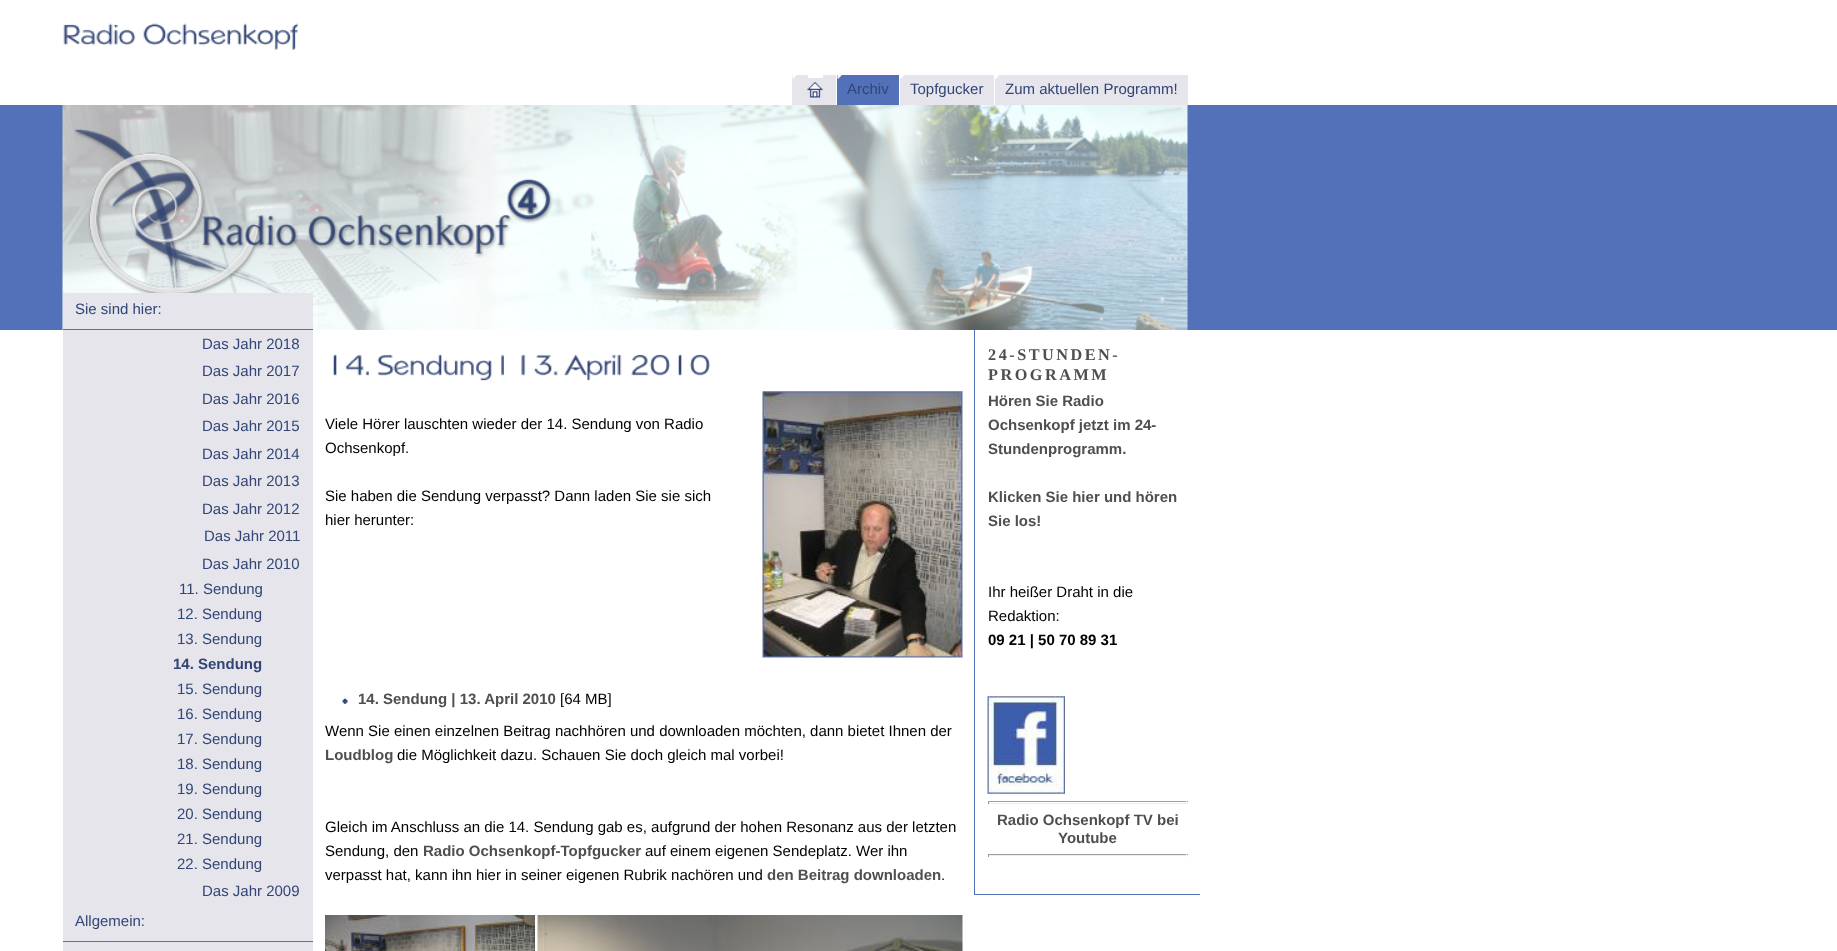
<svg xmlns="http://www.w3.org/2000/svg" width="1837" height="951" viewBox="0 0 1837 951">
  <style>
    .t1 { font: 15px Liberation Sans; fill: #314576; }
    .t2 { font: bold 15px Liberation Sans; fill: #314576; }
    .t3 { font: 15px Liberation Sans; fill: #000; }
    .t4 { font: bold 15px Liberation Sans; fill: #4f4f4f; }
    .t5 { font: bold 16.25px Liberation Serif; letter-spacing: 2.5px; fill: #4f4f4f; }
    .t6 { font: bold 15px Liberation Sans; fill: #000; }
  </style>
  <rect width="100%" height="100%" fill="#fff"/>
  <image x="63" y="23" width="235" height="27" href="images/1.png"/>
  <rect x="792" y="75" width="16" height="30" fill="#e5e5eb"/>
  <image x="792" y="75" width="5" height="4" href="images/2.png"/>
  <rect x="823" y="75" width="13" height="30" fill="#e5e5eb"/>
  <rect x="837" y="75" width="62" height="30" fill="#5371b9"/>
  <image x="837" y="75" width="5" height="4" href="images/3.png"/>
  <rect x="900" y="75" width="94" height="30" fill="#e5e5eb"/>
  <image x="900" y="75" width="4" height="4" href="images/4.png"/>
  <rect x="995" y="75" width="193" height="30" fill="#e5e5eb"/>
  <image x="995" y="75" width="4" height="4" href="images/5.png"/>
  <rect x="808" y="78" width="15" height="27" fill="#e5e5eb"/>
  <image x="807" y="82" width="16" height="16" href="images/6.png"/>
  <text x="847" y="94" class="t1">Archiv</text>
  <text x="910" y="94" class="t1">Topfgucker</text>
  <text x="1005" y="94" class="t1">Zum aktuellen Programm!</text>
  <rect x="0" y="105" width="1837" height="225" fill="#5371b9"/>
  <image x="62" y="105" width="1126" height="225" href="images/7.png"/>
  <rect x="63" y="293" width="250" height="658" fill="#e5e5eb"/>
  <rect x="63" y="329" width="250" height="1" fill="#5371b9"/>
  <text x="75" y="314" class="t1">Sie sind hier:</text>
  <text x="202" y="349" class="t1">Das Jahr 2018</text>
  <text x="202" y="376" class="t1">Das Jahr 2017</text>
  <text x="202" y="404" class="t1">Das Jahr 2016</text>
  <text x="202" y="431" class="t1">Das Jahr 2015</text>
  <text x="202" y="459" class="t1">Das Jahr 2014</text>
  <text x="202" y="486" class="t1">Das Jahr 2013</text>
  <text x="202" y="514" class="t1">Das Jahr 2012</text>
  <text x="204" y="541" class="t1">Das Jahr 2011</text>
  <text x="202" y="569" class="t1">Das Jahr 2010</text>
  <text x="179" y="594" class="t1">11. Sendung</text>
  <text x="177" y="619" class="t1">12. Sendung</text>
  <text x="177" y="644" class="t1">13. Sendung</text>
  <text x="173" y="669" class="t2">14. Sendung</text>
  <text x="177" y="694" class="t1">15. Sendung</text>
  <text x="177" y="719" class="t1">16. Sendung</text>
  <text x="177" y="744" class="t1">17. Sendung</text>
  <text x="177" y="769" class="t1">18. Sendung</text>
  <text x="177" y="794" class="t1">19. Sendung</text>
  <text x="177" y="819" class="t1">20. Sendung</text>
  <text x="177" y="844" class="t1">21. Sendung</text>
  <text x="177" y="869" class="t1">22. Sendung</text>
  <text x="202" y="896" class="t1">Das Jahr 2009</text>
  <rect x="63" y="941" width="250" height="1" fill="#5371b9"/>
  <text x="75" y="926" class="t1">Allgemein:</text>
  <image x="333" y="354" width="377" height="27" href="images/8.png"/>
  <text x="325" y="429" class="t3">Viele Hörer lauschten wieder der 14. Sendung von Radio</text>
  <text x="325" y="453" class="t3">Ochsenkopf.</text>
  <text x="325" y="501" class="t3">Sie haben die Sendung verpasst? Dann laden Sie sie sich</text>
  <text x="325" y="525" class="t3">hier herunter:</text>
  <image x="762" y="391" width="201" height="267" href="images/9.png"/>
  <image x="342" y="698" width="6" height="6" href="images/10.png"/>
  <text x="358" y="704" class="t4">14. Sendung | 13. April 2010</text>
  <text x="560" y="704" class="t3">[64 MB]</text>
  <text x="325" y="736" class="t3">Wenn Sie einen einzelnen Beitrag nachhören und downloaden möchten, dann bietet Ihnen der</text>
  <text x="325" y="760" class="t4">Loudblog</text>
  <text x="397" y="760" class="t3">die Möglichkeit dazu. Schauen Sie doch gleich mal vorbei!</text>
  <text x="325" y="832" class="t3">Gleich im Anschluss an die 14. Sendung gab es, aufgrund der hohen Resonanz aus der letzten</text>
  <text x="325" y="856" class="t3">Sendung, den</text>
  <text x="423" y="856" class="t4">Radio Ochsenkopf-Topfgucker</text>
  <text x="645" y="856" class="t3">auf einem eigenen Sendeplatz. Wer ihn</text>
  <text x="325" y="880" class="t3">verpasst hat, kann ihn hier in seiner eigenen Rubrik nachören und</text>
  <text x="767" y="880" class="t4">den Beitrag downloaden</text>
  <text x="941" y="880" class="t3">.</text>
  <image x="325" y="915" width="210" height="36" href="images/11.png"/>
  <image x="537" y="915" width="426" height="36" href="images/12.png"/>
  <rect x="974" y="894" width="226" height="1" fill="#5371b9"/>
  <rect x="974" y="330" width="1" height="565" fill="#5371b9"/>
  <text x="988" y="360" class="t5">24-STUNDEN-</text>
  <text x="988" y="380" class="t5">PROGRAMM</text>
  <text x="988" y="406" class="t4">Hören Sie Radio</text>
  <text x="988" y="430" class="t4">Ochsenkopf jetzt im 24-</text>
  <text x="988" y="454" class="t4">Stundenprogramm.</text>
  <text x="988" y="502" class="t4">Klicken Sie hier und hören</text>
  <text x="988" y="526" class="t4">Sie los!</text>
  <text x="988" y="597" class="t3">Ihr heißer Draht in die</text>
  <text x="988" y="621" class="t3">Redaktion:</text>
  <text x="988" y="645" class="t6">09 21 | 50 70 89 31</text>
  <image x="987" y="696" width="78" height="98" href="images/13.png"/>
  <rect x="988" y="801" width="200" height="1" fill="#9f9f9f"/>
  <rect x="1186" y="801" width="1" height="3" fill="#eee"/>
  <rect x="988" y="803" width="200" height="1" fill="#eee"/>
  <rect x="988" y="801" width="1" height="3" fill="#9f9f9f"/>
  <text x="997" y="825" class="t4">Radio Ochsenkopf TV bei</text>
  <text x="1058" y="843" class="t4">Youtube</text>
  <rect x="988" y="854" width="200" height="1" fill="#9f9f9f"/>
  <rect x="1186" y="854" width="1" height="3" fill="#eee"/>
  <rect x="988" y="855" width="200" height="1" fill="#eee"/>
  <rect x="988" y="854" width="1" height="3" fill="#9f9f9f"/>
</svg>
